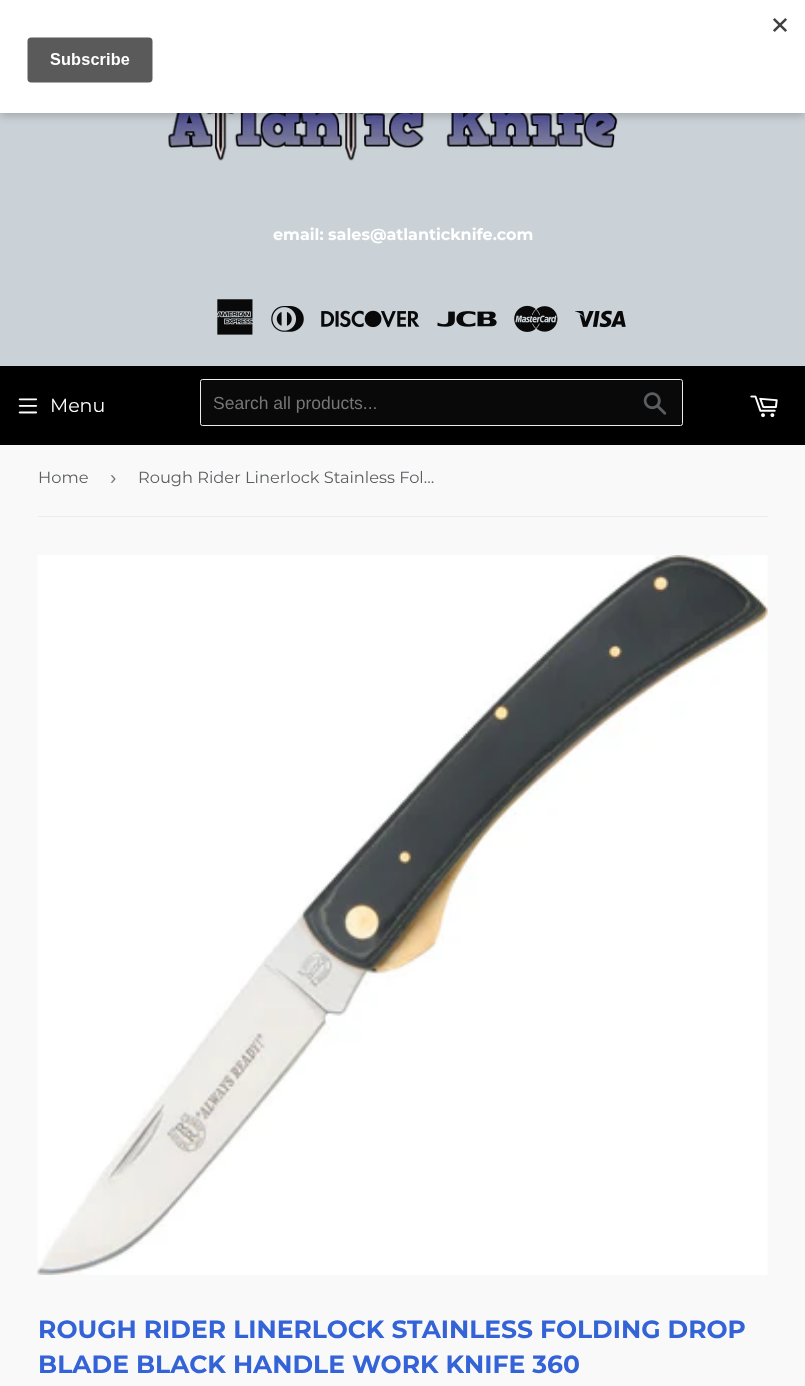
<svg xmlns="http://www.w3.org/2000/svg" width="805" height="1386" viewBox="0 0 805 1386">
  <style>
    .t1 { font: bold 16px Montserrat; fill: #fff; }
    .t2 { font: 19px Montserrat; fill: #fff; }
    .t3 { font: 17.5px Liberation Sans; fill: #767676; }
    .t4 { font: 16.25px Montserrat; fill: #5a5e61; }
    .t5 { font: 19px Liberation Sans; fill: #767676; }
    .t6 { font: bold 25px Montserrat; fill: #3463d8; }
  </style>
  <rect width="100%" height="100%" fill="#f9f9f9"/>
  <rect x="0" y="113" width="805" height="253" fill="#cbd2d7"/>
  <image x="168" y="113" width="450" height="48" href="images/2.png"/>
  <rect x="0" y="4" width="805" height="112" fill="#00000033" filter="blur(4px)"/>
  <rect x="0" y="0" width="805" height="113" fill="#fff"/>
  <image x="27" y="18" width="760" height="65" href="images/1.png"/>
  <text x="273" y="240" class="t1">email: sales@atlanticknife.com</text>
  <image x="217" y="299" width="36" height="36" href="images/3.png"/>
  <image x="271" y="306" width="33" height="26" href="images/4.png"/>
  <image x="321" y="310" width="99" height="18" href="images/5.png"/>
  <image x="437" y="311" width="60" height="16" href="images/6.png"/>
  <image x="514" y="305" width="44" height="27" href="images/7.png"/>
  <image x="575" y="310" width="51" height="18" href="images/8.png"/>
  <rect x="0" y="366" width="805" height="79" fill="#000"/>
  <image x="18" y="398" width="20" height="16" href="images/9.png"/>
  <text x="50" y="412" class="t2">Menu</text>
  <rect x="200.5" y="379.5" width="482" height="46" rx="2" fill="#09090a" stroke="#ececec"/>
  <text x="213" y="409" class="t3">Search all products...</text>
  <image x="643" y="392" width="24" height="23" href="images/10.png"/>
  <image x="750" y="395" width="28" height="23" href="images/11.png"/>
  <rect x="38" y="516" width="730" height="1" fill="#ececec"/>
  <text x="38" y="483" class="t4">Home</text>
  <text x="110" y="484" class="t5">›</text>
  <text x="138" y="483" class="t4">Rough Rider Linerlock Stainless Fol…</text>
  <image x="37" y="555" width="731" height="720" href="images/12.png"/>
  <text x="38" y="1338" class="t6">ROUGH RIDER LINERLOCK STAINLESS FOLDING DROP</text>
  <text x="38" y="1373" class="t6">BLADE BLACK HANDLE WORK KNIFE 360</text>
</svg>
